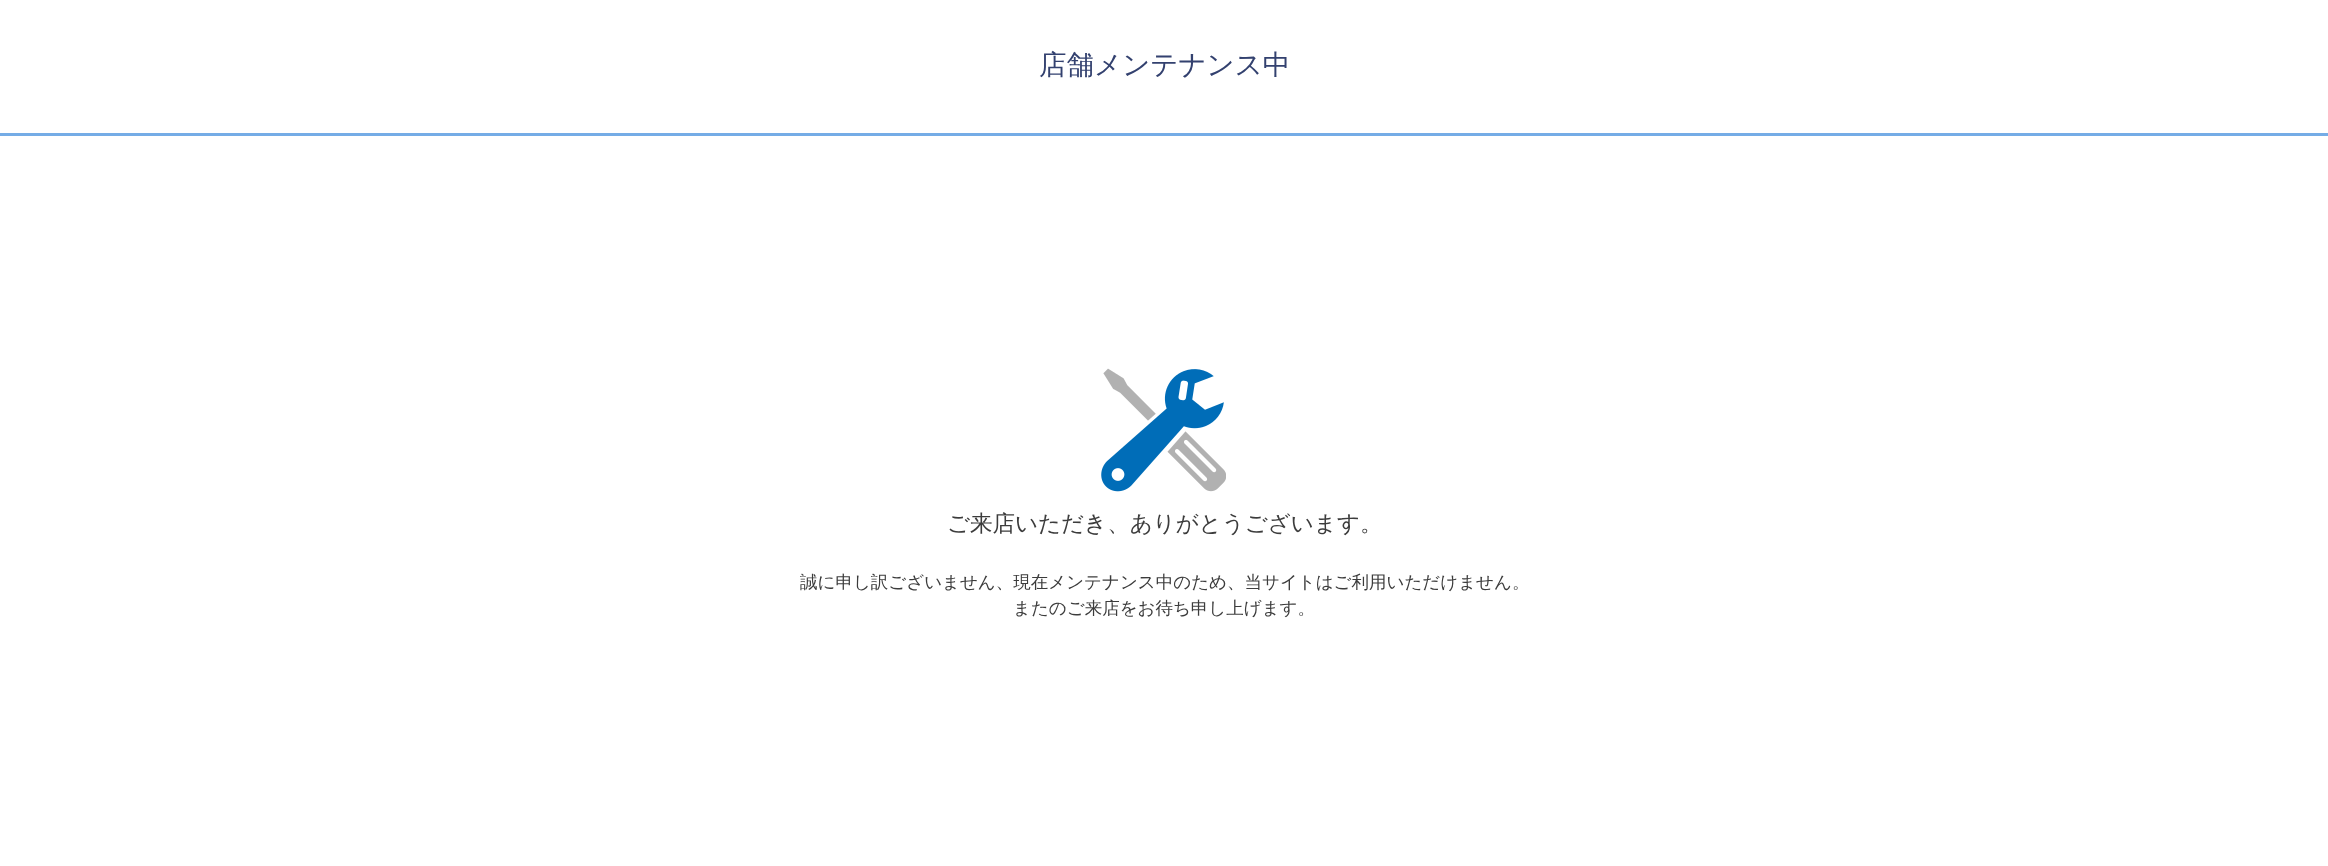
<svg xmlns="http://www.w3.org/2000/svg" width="2328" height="866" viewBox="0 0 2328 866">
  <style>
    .t1 { font: 500 27.5px WenQuanYi Zen Hei; fill: #33416f; }
    .t2 { font: 500 22.5px WenQuanYi Zen Hei; fill: #3c3c3c; }
    .t3 { font: 500 17.5px WenQuanYi Zen Hei; fill: #3c3c3c; }
  </style>
  <rect width="100%" height="100%" fill="#fff"/>
  <rect x="0" y="133" width="2328" height="3" fill="#75ace6"/>
  <text x="1039" y="74" class="t1">店舗メンテナンス中</text>
  <image x="1101" y="368" width="125" height="124" href="images/1.png"/>
  <text x="947" y="531" class="t2">ご来店いただき、ありがとうございます。</text>
  <text x="800" y="588" class="t3">誠に申し訳ございません、現在メンテナンス中のため、当サイトはご利用いただけません。</text>
  <text x="1013" y="614" class="t3">またのご来店をお待ち申し上げます。</text>
</svg>
